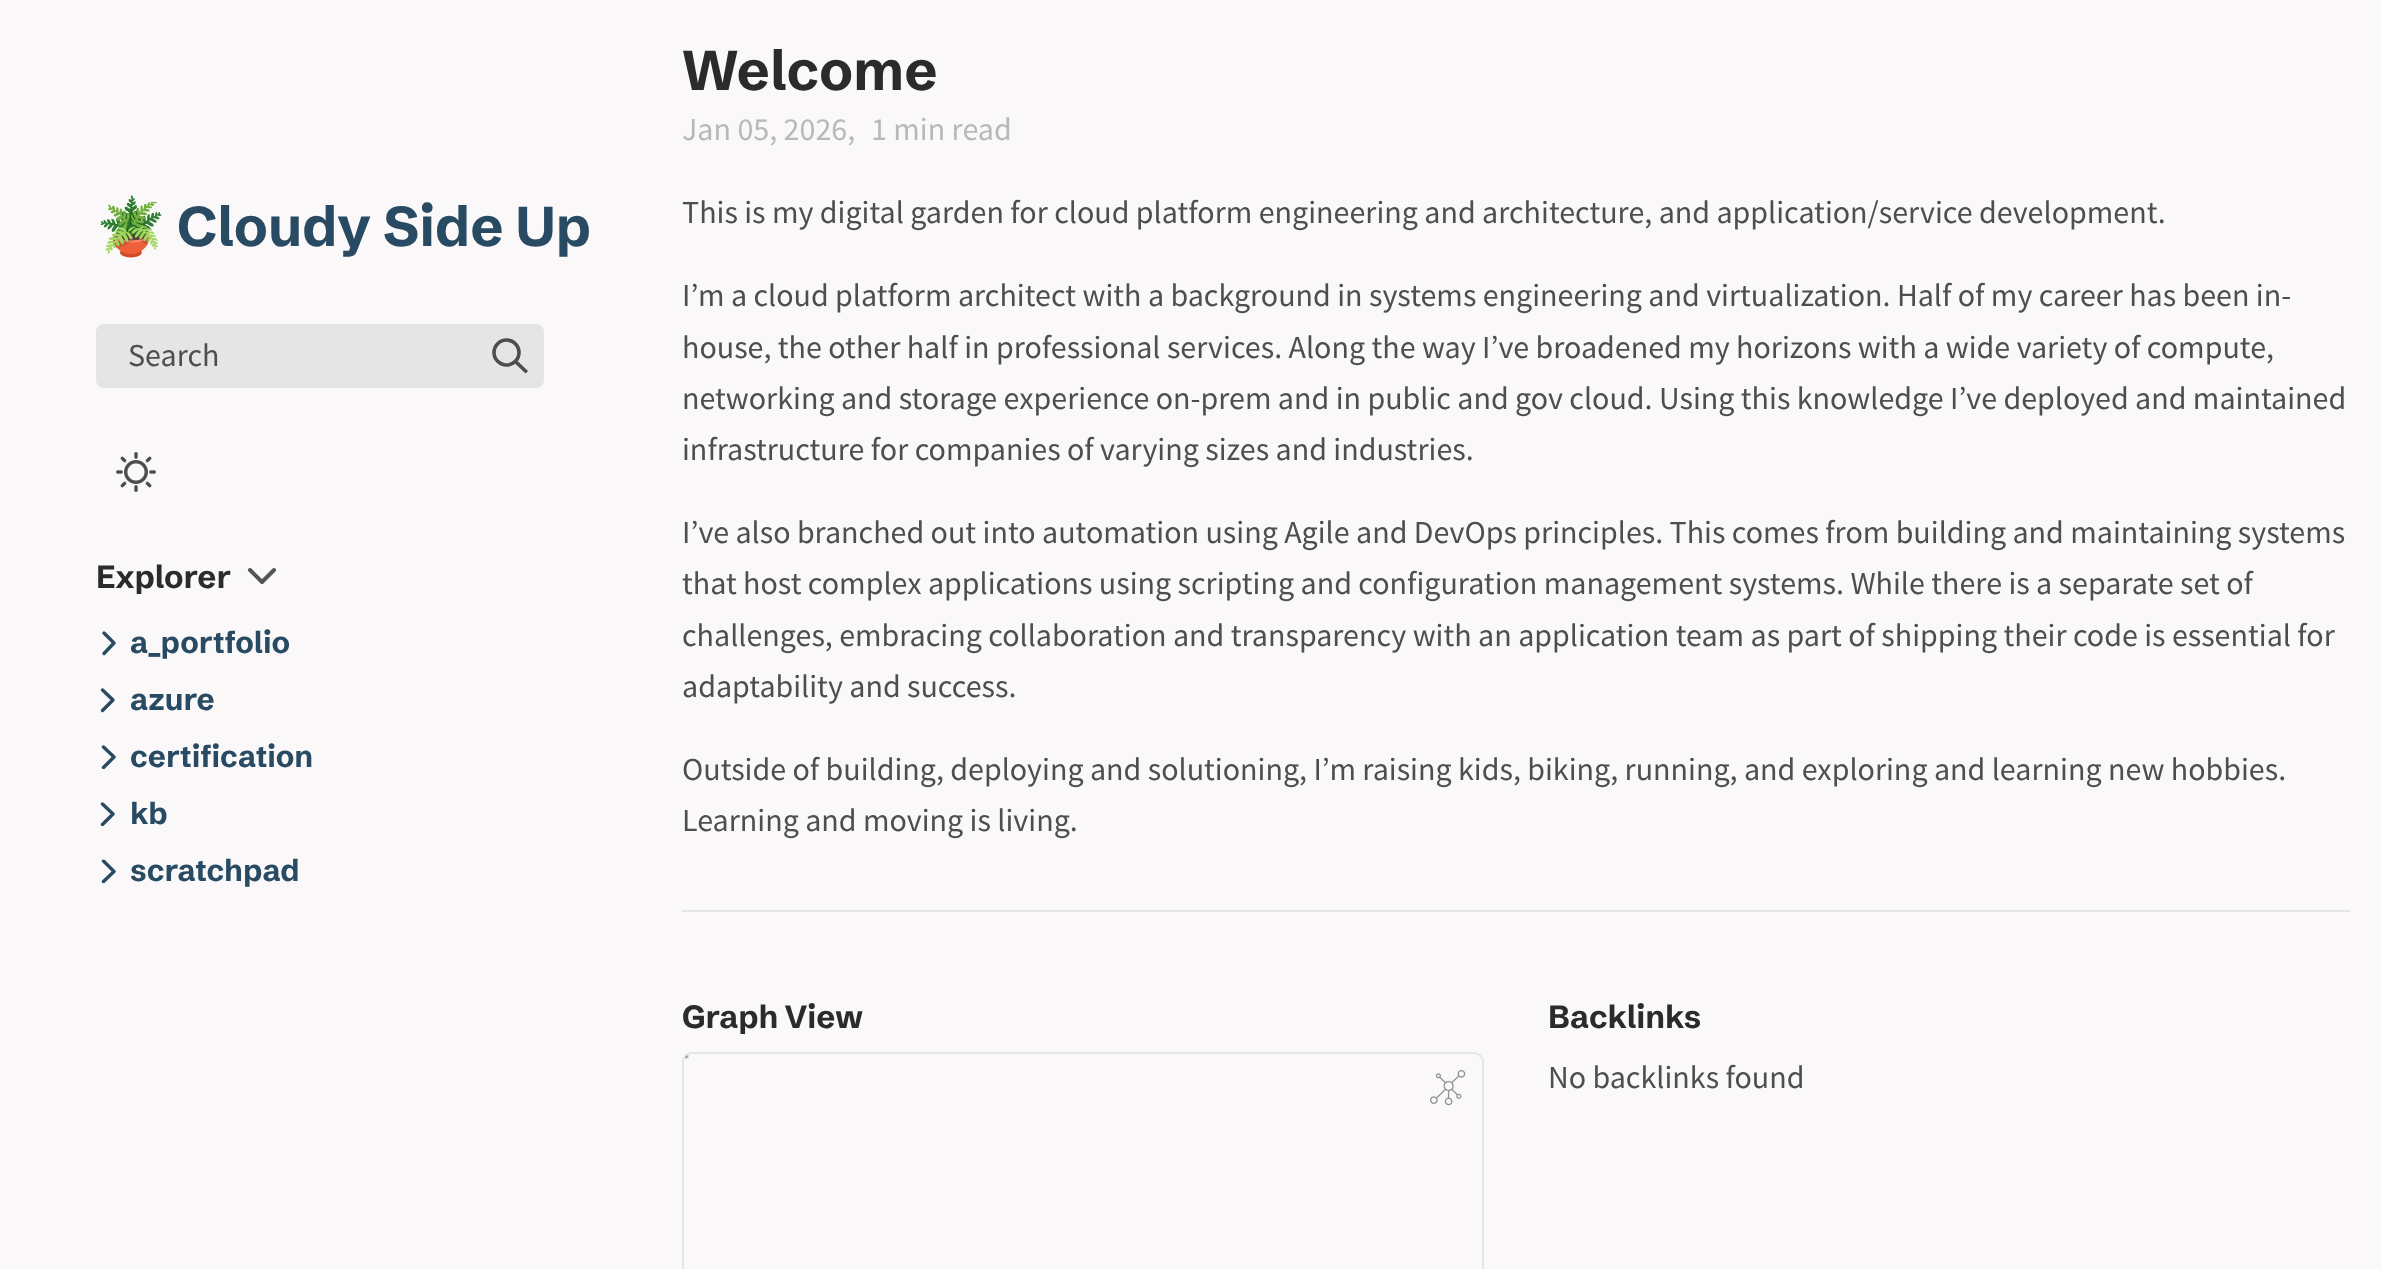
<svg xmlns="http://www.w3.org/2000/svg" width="2381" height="1269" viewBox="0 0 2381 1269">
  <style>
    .t1 { font: bold 56px Noto Color Emoji; fill: #284b63; }
    .t2 { font: bold 56px Schibsted Grotesk; fill: #284b63; }
    .t3 { font: 32px Source Sans Pro; fill: #4e4e4e; }
    .t4 { font: bold 32px Schibsted Grotesk; fill: #2b2b2b; }
    .t5 { font: bold 30.5px Schibsted Grotesk; fill: #284b63; }
    .t6 { font: bold 56px Schibsted Grotesk; fill: #2b2b2b; }
    .t7 { font: 32px Source Sans Pro; fill: #b8b8b8; }
  </style>
  <defs>
    <clipPath id="clip1"><path d="M96 769V745H120V769Z"/></clipPath>
    <clipPath id="clip2"><path d="M96 826V802H120V826Z"/></clipPath>
    <clipPath id="clip3"><path d="M96 883.5V859.5H120V883.5Z"/></clipPath>
  </defs>
  <rect width="100%" height="100%" fill="#faf8f8"/>
  <text x="96" y="246" class="t1">🪴</text>
  <text x="177" y="246" class="t2">Cloudy Side Up</text>
  <rect x="96" y="324" width="448" height="64" rx="8" fill="#e5e5e5"/>
  <text x="128" y="366" class="t3">Search</text>
  <path d="M525.5 371L515.5 361.5" fill="none" stroke="#4e4e4e" stroke-width="3.6" stroke-linecap="square"/>
  <circle cx="506.5" cy="352.5" r="12.5" fill="none" stroke="#4e4e4e" stroke-width="3.6"/>
  <image x="116" y="452" width="40" height="40" href="images/1.png"/>
  <text x="96" y="588" class="t4">Explorer</text>
  <path d="M250 570L262 582L274 570" fill="none" stroke="#545454" stroke-width="4" stroke-linecap="round" stroke-linejoin="round"/>
  <path d="M104 653.5L114 643L104 633" fill="none" stroke="#284b63" stroke-width="3.4" stroke-linecap="round" stroke-linejoin="round"/>
  <text x="130" y="653" class="t5">a_portfolio</text>
  <path d="M102.5 710.5L113 700L102.5 690" fill="none" stroke="#284b63" stroke-width="3.4" stroke-linecap="round" stroke-linejoin="round"/>
  <text x="130" y="710" class="t5">azure</text>
  <g clip-path="url(#clip1)">
    <path d="M103.5 767.5L114 757L103.5 747" fill="none" stroke="#284b63" stroke-width="3.4" stroke-linecap="round" stroke-linejoin="round"/>
  </g>
  <text x="130" y="767" class="t5">certification</text>
  <g clip-path="url(#clip2)">
    <path d="M102.5 824.5L113 814L102.5 804" fill="none" stroke="#284b63" stroke-width="3.4" stroke-linecap="round" stroke-linejoin="round"/>
  </g>
  <text x="130" y="824" class="t5">kb</text>
  <g clip-path="url(#clip3)">
    <path d="M103.5 881.5L114 871.5L103.5 861" fill="none" stroke="#284b63" stroke-width="3.4" stroke-linecap="round" stroke-linejoin="round"/>
  </g>
  <text x="130" y="881" class="t5">scratchpad</text>
  <text x="682" y="90" class="t6">Welcome</text>
  <text x="682" y="140" class="t7">Jan 05, 2026,</text>
  <text x="871" y="140" class="t7">1 min read</text>
  <text x="682" y="223" class="t3">This is my digital garden for cloud platform engineering and architecture, and application/service development.</text>
  <text x="682" y="306" class="t3">I’m a cloud platform architect with a background in systems engineering and virtualization. Half of my career has been in-</text>
  <text x="682" y="358" class="t3">house, the other half in professional services. Along the way I’ve broadened my horizons with a wide variety of compute,</text>
  <text x="682" y="409" class="t3">networking and storage experience on-prem and in public and gov cloud. Using this knowledge I’ve deployed and maintained</text>
  <text x="682" y="460" class="t3">infrastructure for companies of varying sizes and industries.</text>
  <text x="682" y="543" class="t3">I’ve also branched out into automation using Agile and DevOps principles. This comes from building and maintaining systems</text>
  <text x="682" y="594" class="t3">that host complex applications using scripting and configuration management systems. While there is a separate set of</text>
  <text x="682" y="646" class="t3">challenges, embracing collaboration and transparency with an application team as part of shipping their code is essential for</text>
  <text x="682" y="697" class="t3">adaptability and success.</text>
  <text x="682" y="780" class="t3">Outside of building, deploying and solutioning, I’m raising kids, biking, running, and exploring and learning new hobbies.</text>
  <text x="682" y="831" class="t3">Learning and moving is living.</text>
  <rect x="682" y="910" width="1668" height="2" fill="#e5e5e5"/>
  <text x="682" y="1028" class="t4">Graph View</text>
  <rect x="683" y="1053" width="800" height="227" rx="9" fill="none" stroke="#e5e5e5" stroke-width="2"/>
  <image x="684" y="1054" width="5" height="5" href="images/2.png"/>
  <image x="1430" y="1070" width="36" height="36" href="images/3.png"/>
  <text x="1548" y="1028" class="t4">Backlinks</text>
  <text x="1548" y="1088" class="t3">No backlinks found</text>
</svg>
